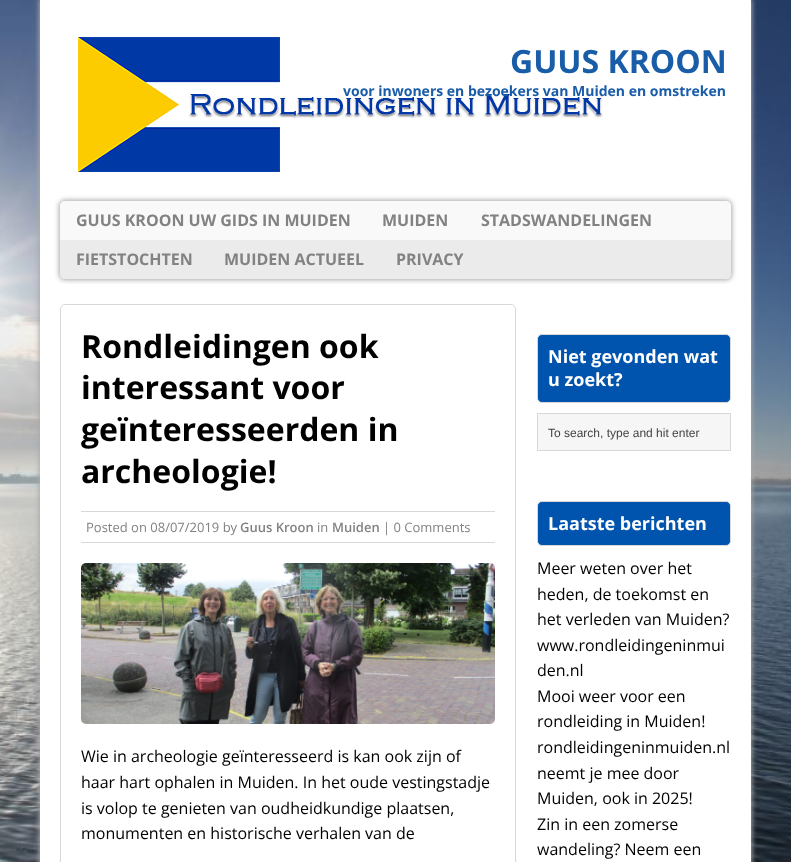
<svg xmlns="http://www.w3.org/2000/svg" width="791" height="862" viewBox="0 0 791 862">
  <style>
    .t1 { font: bold 32px Open Sans; fill: #195ca8; }
    .t2 { font: bold 14px Open Sans; fill: #195ca8; }
    .t3 { font: bold 16px Open Sans; fill: #828282; }
    .t4 { font: bold 32px Open Sans; fill: #000; }
    .t5 { font: 13px Open Sans; fill: #828282; }
    .t6 { font: 600 13px Open Sans; fill: #828282; }
    .t7 { font: 16px Open Sans; fill: #000; }
    .t8 { font: bold 18px Open Sans; fill: #fefefe; }
    .t9 { font: 12px Liberation Sans; fill: #444; }
  </style>
  <rect width="100%" height="100%" fill="#fff"/>
  <image x="0" y="0" width="791" height="862" href="images/1.png"/>
  <rect x="39" y="-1" width="713" height="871" fill="#a8a8a8" filter="blur(2.5px)"/>
  <rect x="40" y="0" width="711" height="284" fill="#fff"/>
  <image x="78" y="37" width="525" height="135" href="images/2.png"/>
  <text x="510" y="73" class="t1">GUUS KROON</text>
  <text x="343" y="96" class="t2">voor inwoners en bezoekers van Muiden en omstreken</text>
  <rect x="59" y="200" width="673" height="80" rx="6" fill="#a8a8a8" filter="blur(2.5px)"/>
  <path d="M65 201H726C729 201 731 203 731 206V240H60V206C60 203 62 201 65 201Z" fill="#f9f9f9"/>
  <path d="M60 240H731V274C731 277 729 279 726 279H65C62 279 60 277 60 274Z" fill="#ebebeb"/>
  <text x="76" y="226" class="t3">GUUS KROON UW GIDS IN MUIDEN</text>
  <text x="382" y="226" class="t3">MUIDEN</text>
  <text x="481" y="226" class="t3">STADSWANDELINGEN</text>
  <text x="76" y="265" class="t3">FIETSTOCHTEN</text>
  <text x="224" y="265" class="t3">MUIDEN ACTUEEL</text>
  <text x="396" y="265" class="t3">PRIVACY</text>
  <rect x="40" y="284" width="711" height="578" fill="#fff"/>
  <rect x="60.5" y="304.5" width="455" height="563" rx="4.5" fill="none" stroke="#d8d8d8"/>
  <text x="81" y="358" class="t4">Rondleidingen ook</text>
  <text x="81" y="399" class="t4">interessant voor</text>
  <text x="81" y="441" class="t4">geïnteresseerden in</text>
  <text x="81" y="483" class="t4">archeologie!</text>
  <rect x="81" y="511" width="414" height="1" fill="#d8d8d8"/>
  <rect x="81" y="542" width="414" height="1" fill="#d8d8d8"/>
  <text x="86" y="532" class="t5">Posted on 08/07/2019 by</text>
  <text x="240" y="532" class="t6">Guus Kroon</text>
  <text x="317" y="532" class="t5">in</text>
  <text x="332" y="532" class="t6">Muiden</text>
  <text x="383" y="532" class="t5">| 0 Comments</text>
  <image x="81" y="563" width="414" height="161" href="images/3.png"/>
  <text x="81" y="762" class="t7">Wie in archeologie geïnteresseerd is kan ook zijn of</text>
  <text x="81" y="788" class="t7">haar hart ophalen in Muiden. In het oude vestingstadje</text>
  <text x="81" y="814" class="t7">is volop te genieten van oudheidkundige plaatsen,</text>
  <text x="81" y="839" class="t7">monumenten en historische verhalen van de</text>
  <rect x="537.5" y="334.5" width="193" height="68" rx="4.5" fill="#0054ad" stroke="#d8d8d8"/>
  <text x="548" y="363" class="t8">Niet gevonden wat</text>
  <text x="548" y="386" class="t8">u zoekt?</text>
  <rect x="537.5" y="413.5" width="193" height="37" fill="#f6f6f6" stroke="#d8d8d8"/>
  <text x="548" y="437" class="t9">To search, type and hit enter</text>
  <rect x="537.5" y="501.5" width="193" height="44" rx="4.5" fill="#0054ad" stroke="#d8d8d8"/>
  <text x="548" y="530" class="t8">Laatste berichten</text>
  <text x="537" y="574" class="t7">Meer weten over het</text>
  <text x="537" y="600" class="t7">heden, de toekomst en</text>
  <text x="537" y="625" class="t7">het verleden van Muiden?</text>
  <text x="537" y="651" class="t7">www.rondleidingeninmui</text>
  <text x="537" y="676" class="t7">den.nl</text>
  <text x="537" y="702" class="t7">Mooi weer voor een</text>
  <text x="537" y="727" class="t7">rondleiding in Muiden!</text>
  <text x="537" y="753" class="t7">rondleidingeninmuiden.nl</text>
  <text x="537" y="779" class="t7">neemt je mee door</text>
  <text x="537" y="804" class="t7">Muiden, ook in 2025!</text>
  <text x="537" y="830" class="t7">Zin in een zomerse</text>
  <text x="537" y="855" class="t7">wandeling? Neem een</text>
</svg>
